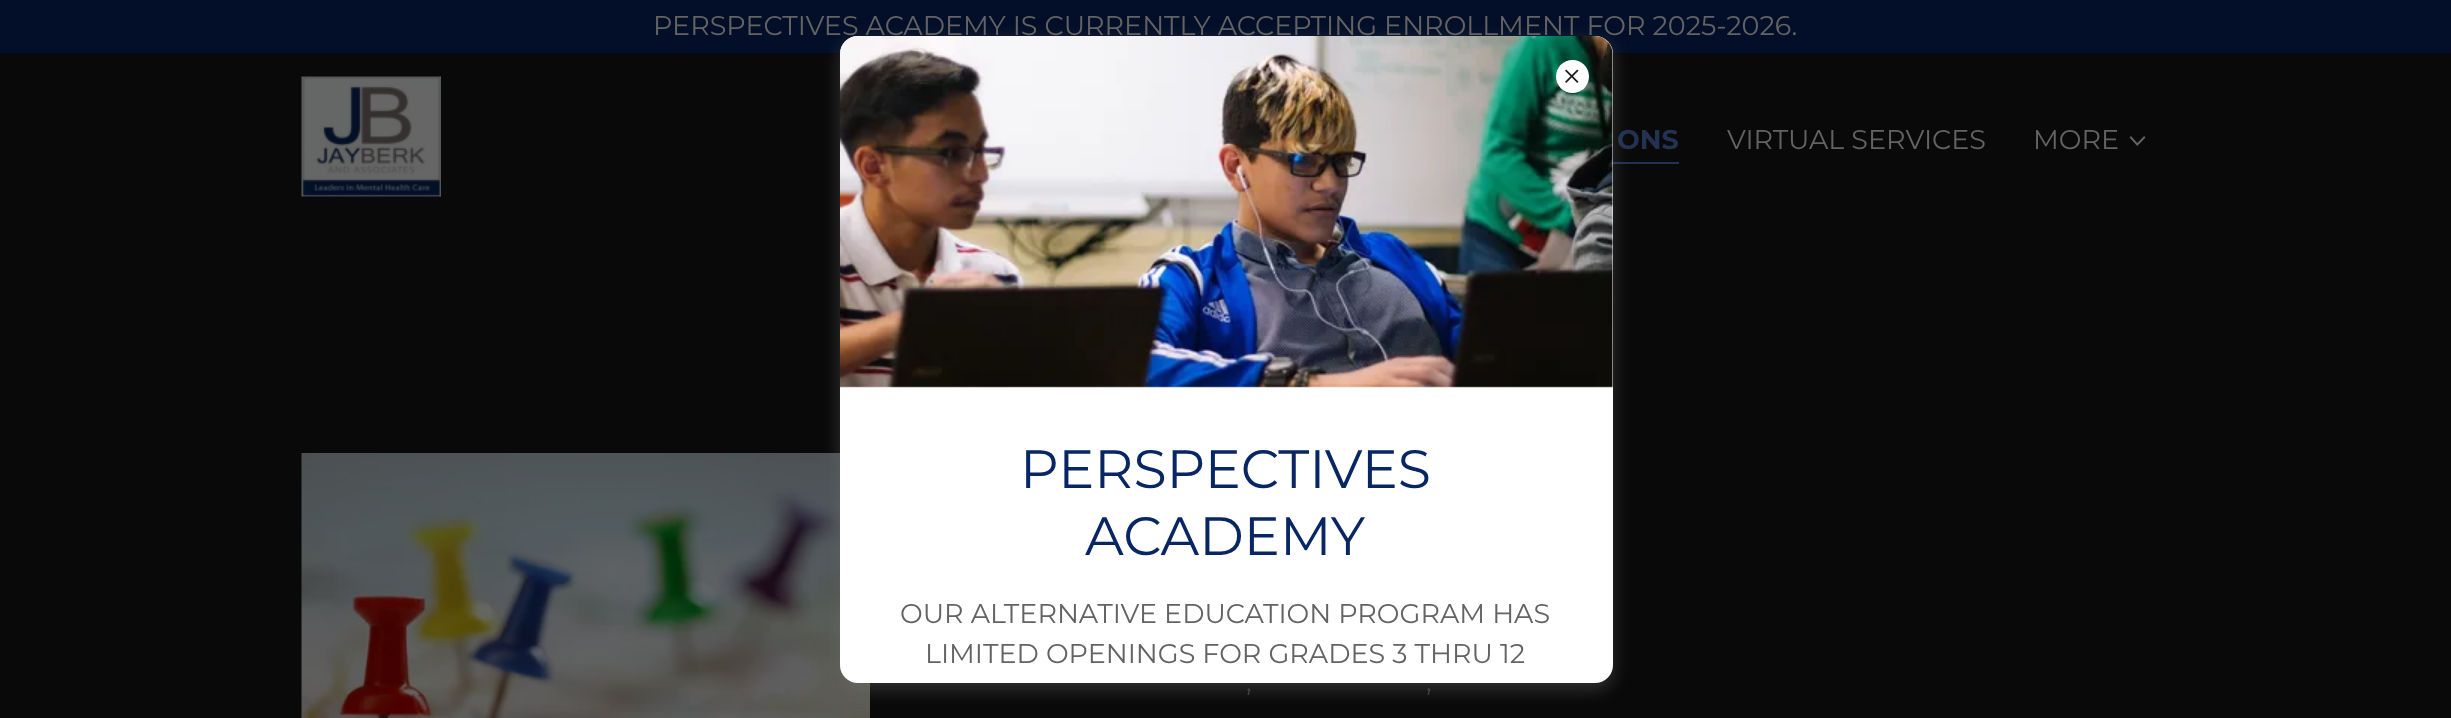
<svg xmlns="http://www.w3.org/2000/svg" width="2451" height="718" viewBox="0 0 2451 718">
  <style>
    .t1 { font: 27px Montserrat; fill: #636363; }
    .t2 { font: bold 27px Montserrat; fill: #223253; }
    .t3 { font: 54px Montserrat; fill: #072663; }
    .t4 { font: 27px Montserrat; fill: #424242; }
  </style>
  <rect width="100%" height="100%" fill="#090909"/>
  <rect x="0" y="0" width="2451" height="53" fill="#030f28"/>
  <text x="653" y="35" class="t1">PERSPECTIVES ACADEMY IS CURRENTLY ACCEPTING ENROLLMENT FOR 2025-2026.</text>
  <image x="301" y="76" width="140" height="121" href="images/1.png"/>
  <rect x="1613" y="162" width="66" height="2" fill="#223253"/>
  <text x="1617" y="149" class="t2">ONS</text>
  <text x="1727" y="149" class="t1">VIRTUAL SERVICES</text>
  <text x="2033" y="149" class="t1">MORE</text>
  <image x="2129" y="136" width="17" height="10" href="images/2.png"/>
  <image x="301" y="453" width="569" height="265" href="images/5.png"/>
  <rect x="840" y="42" width="773" height="647" rx="18" fill="#75757566" filter="blur(9px)"/>
  <rect x="840" y="36" width="773" height="647" rx="18" fill="#fff"/>
  <image x="840" y="36" width="773" height="352" href="images/4.png"/>
  <circle cx="1572.5" cy="76.5" r="16.5" fill="#fff"/>
  <image x="1565" y="69" width="14" height="14" href="images/3.png"/>
  <text x="1020" y="488" class="t3">PERSPECTIVES</text>
  <text x="1085" y="555" class="t3">ACADEMY</text>
  <text x="900" y="623" class="t1">OUR ALTERNATIVE EDUCATION PROGRAM HAS</text>
  <text x="925" y="663" class="t1">LIMITED OPENINGS FOR GRADES 3 THRU 12</text>
  <text x="1246" y="691" class="t4">,</text>
  <text x="1426" y="691" class="t4">,</text>
</svg>
